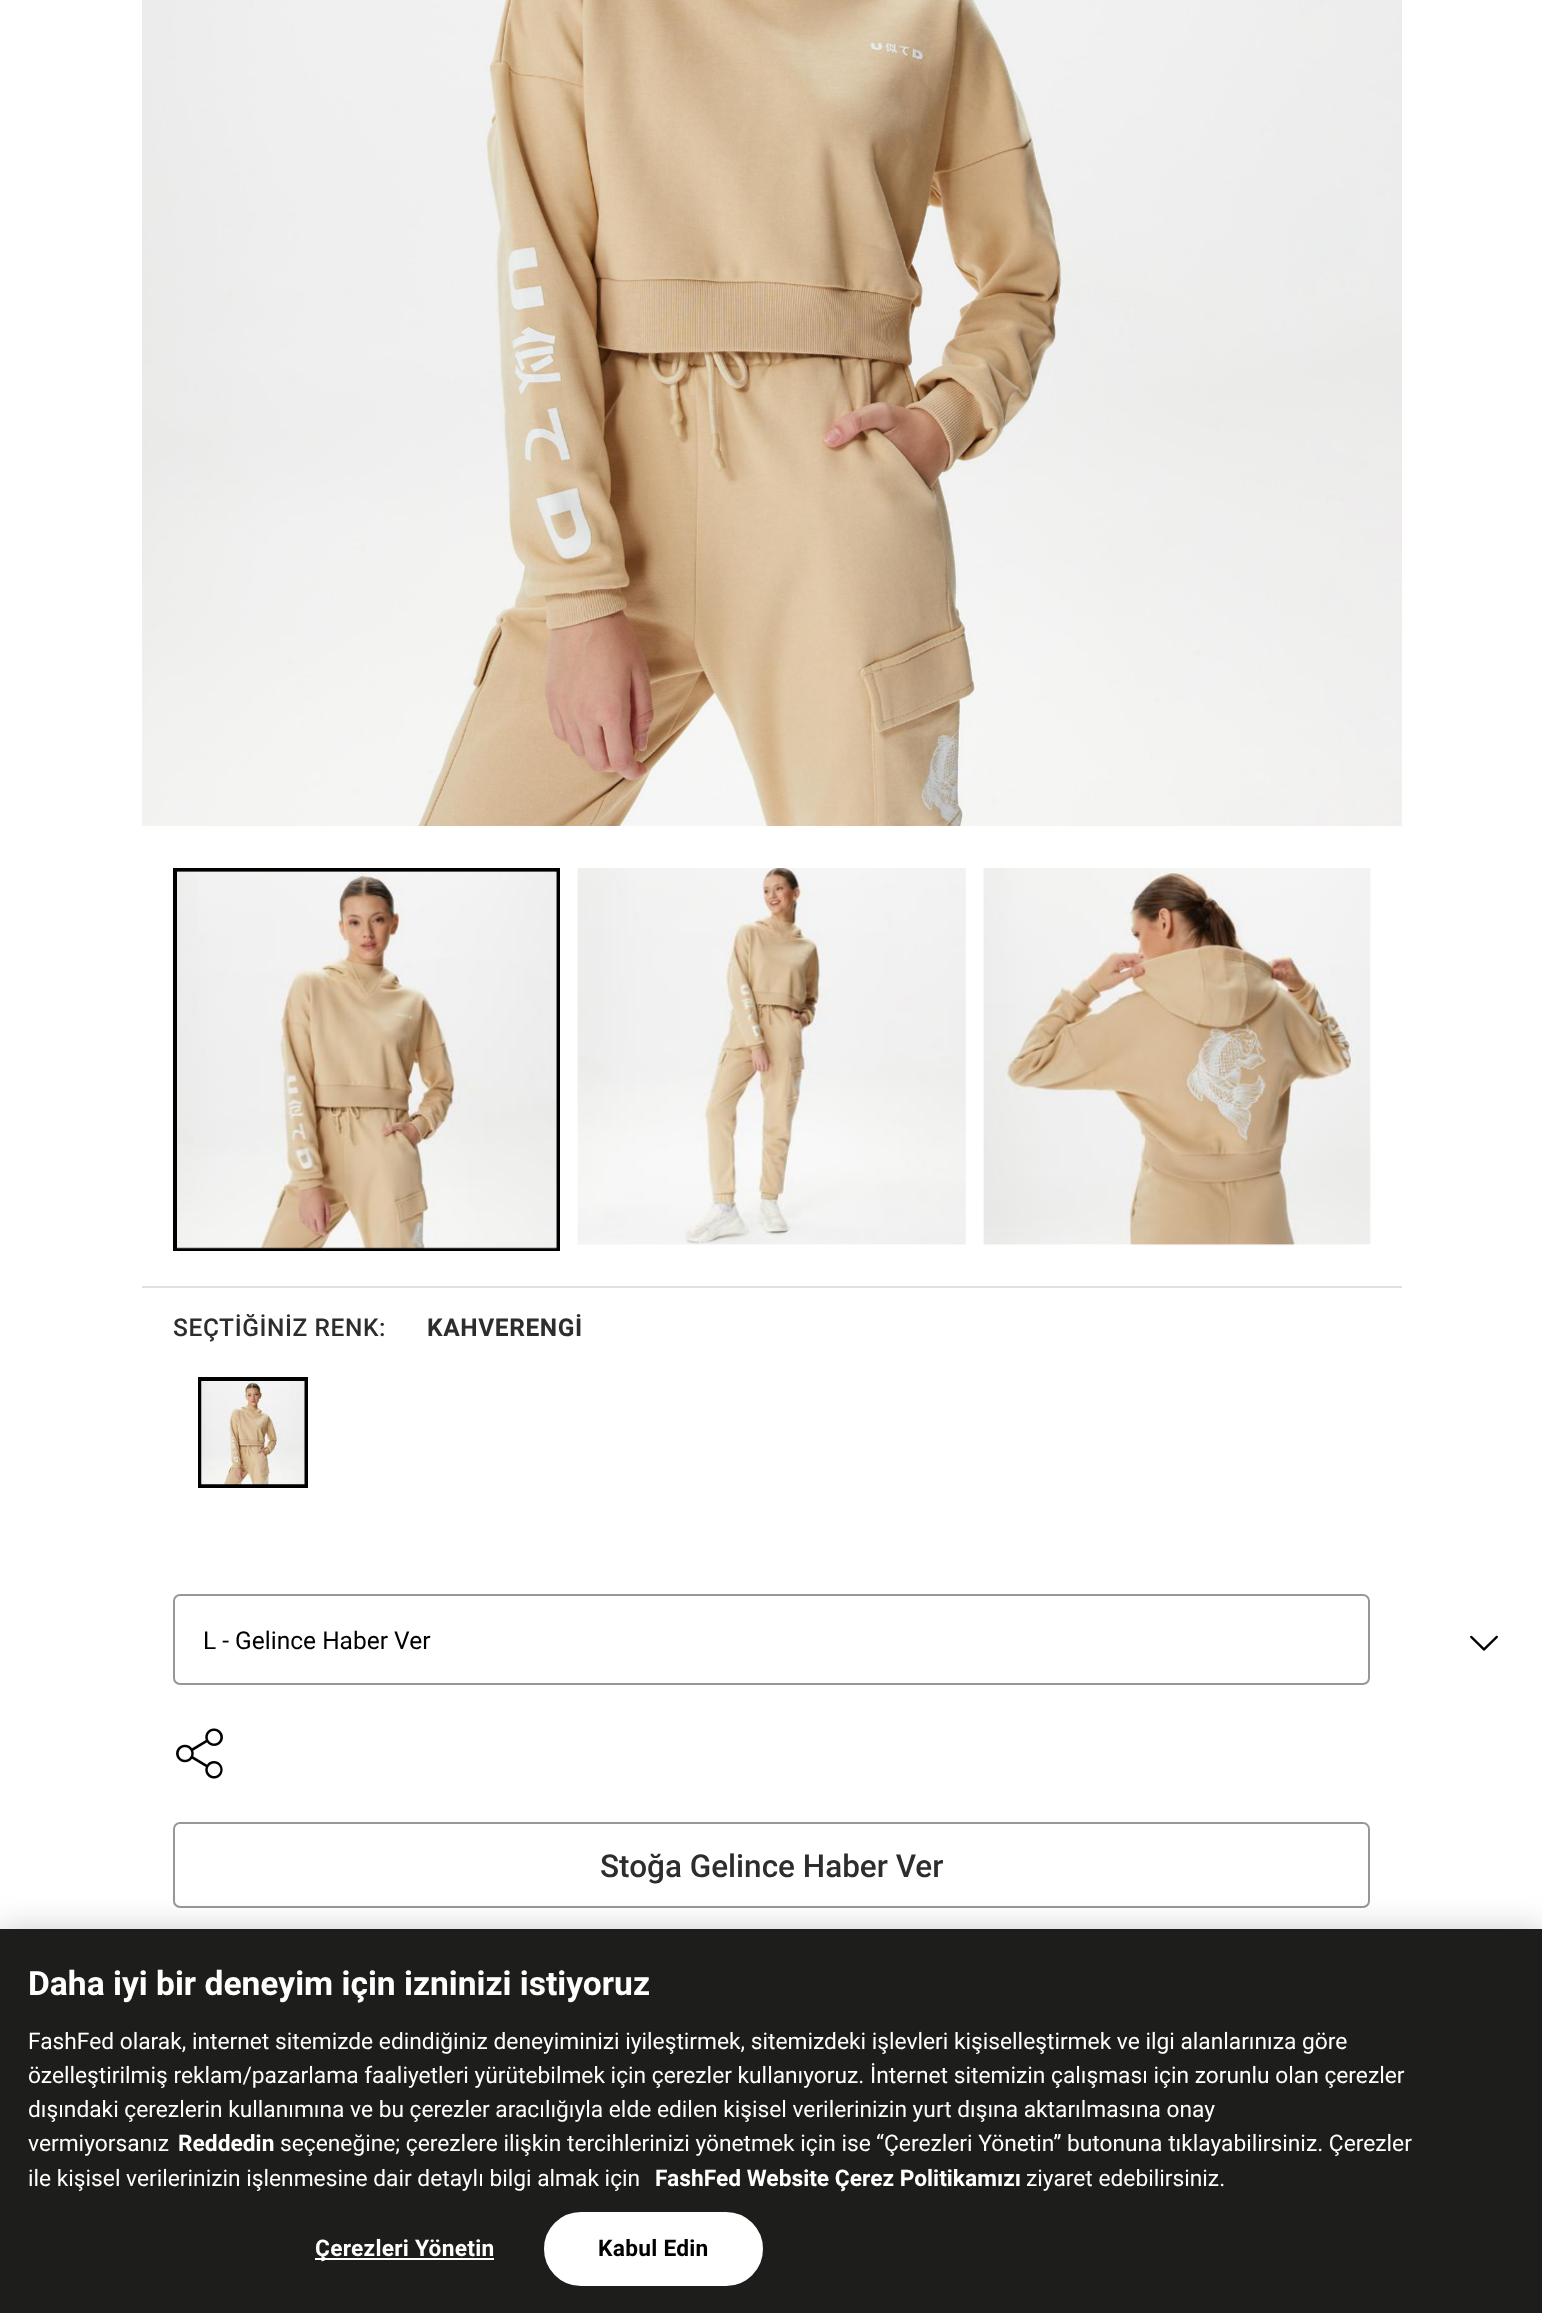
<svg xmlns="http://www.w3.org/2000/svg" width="1542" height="2313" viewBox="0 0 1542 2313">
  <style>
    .t1 { font: 500 24.5px Roboto; letter-spacing: 0.6px; fill: #2d2d2d; }
    .t2 { font: bold 24.5px Roboto; letter-spacing: 0.6px; fill: #2d2d2d; }
    .t3 { font: 24.5px Roboto; fill: #000; }
    .t4 { font: 500 31.5px Roboto; fill: #2d2d2d; }
    .t5 { font: bold 33.6px Roboto; fill: #fff; }
    .t6 { font: 22.75px Roboto; fill: #fff; }
    .t7 { font: bold 22.75px Roboto; fill: #fff; }
    .t8 { font: bold 22.75px Roboto; letter-spacing: 0.25px; fill: #fff; }
    .t9 { font: bold 22.75px Roboto; letter-spacing: 0.25px; fill: #000; }
  </style>
  <rect width="100%" height="100%" fill="#fff"/>
  <rect x="142" y="1286" width="1260" height="2" fill="#e1e1e1"/>
  <image x="142" y="0" width="1260" height="826" href="images/1.png"/>
  <rect x="175" y="870" width="383" height="379" fill="none" stroke="#000" stroke-width="4"/>
  <image x="177" y="871" width="380" height="378" href="images/2.png"/>
  <image x="577" y="868" width="389" height="377" href="images/3.png"/>
  <image x="983" y="868" width="388" height="378" href="images/4.png"/>
  <text x="173" y="1336" class="t1">SEÇTİĞİNİZ RENK:</text>
  <text x="427" y="1336" class="t2">KAHVERENGİ</text>
  <rect x="200" y="1379" width="106" height="107" fill="none" stroke="#000" stroke-width="4"/>
  <image x="201" y="1381" width="104" height="104" href="images/5.png"/>
  <rect x="174" y="1595" width="1195" height="89" rx="6" fill="none" stroke="#979797" stroke-width="2"/>
  <text x="203" y="1649" class="t3">L - Gelince Haber Ver</text>
  <image x="1470" y="1635" width="28" height="16" href="images/6.png"/>
  <image x="176" y="1728" width="47" height="51" href="images/7.png"/>
  <rect x="174" y="1823" width="1195" height="84" rx="6" fill="none" stroke="#979797" stroke-width="2"/>
  <text x="600" y="1877" class="t4">Stoğa Gelince Haber Ver</text>
  <rect x="0" y="1929" width="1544" height="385" fill="#00000033" filter="blur(16px)"/>
  <rect x="0" y="1929" width="1542" height="384" fill="#1d1d1b"/>
  <text x="28" y="1995" class="t5">Daha iyi bir deneyim için izninizi istiyoruz</text>
  <text x="28" y="2049" class="t6">FashFed olarak, internet sitemizde edindiğiniz deneyiminizi iyileştirmek, sitemizdeki işlevleri kişiselleştirmek ve ilgi alanlarınıza göre</text>
  <text x="28" y="2083" class="t6">özelleştirilmiş reklam/pazarlama faaliyetleri yürütebilmek için çerezler kullanıyoruz. İnternet sitemizin çalışması için zorunlu olan çerezler</text>
  <text x="28" y="2117" class="t6">dışındaki çerezlerin kullanımına ve bu çerezler aracılığıyla elde edilen kişisel verilerinizin yurt dışına aktarılmasına onay</text>
  <text x="28" y="2151" class="t6">vermiyorsanız</text>
  <text x="178" y="2151" class="t7">Reddedin</text>
  <text x="280" y="2151" class="t6">seçeneğine; çerezlere ilişkin tercihlerinizi yönetmek için ise</text>
  <text x="876" y="2151" class="t6">“Çerezleri Yönetin” butonuna tıklayabilirsiniz. Çerezler</text>
  <text x="28" y="2186" class="t6">ile kişisel verilerinizin işlenmesine dair detaylı bilgi almak için</text>
  <text x="655" y="2186" class="t7">FashFed Website Çerez Politikamızı</text>
  <text x="1026" y="2186" class="t6">ziyaret edebilirsiniz.</text>
  <rect x="315" y="2258" width="179" height="2" fill="#fff"/>
  <text x="315" y="2256" class="t8">Çerezleri Yönetin</text>
  <rect x="545" y="2213" width="217" height="72" rx="36" fill="#fff" stroke="#fff" stroke-width="2"/>
  <text x="598" y="2256" class="t9">Kabul Edin</text>
</svg>
